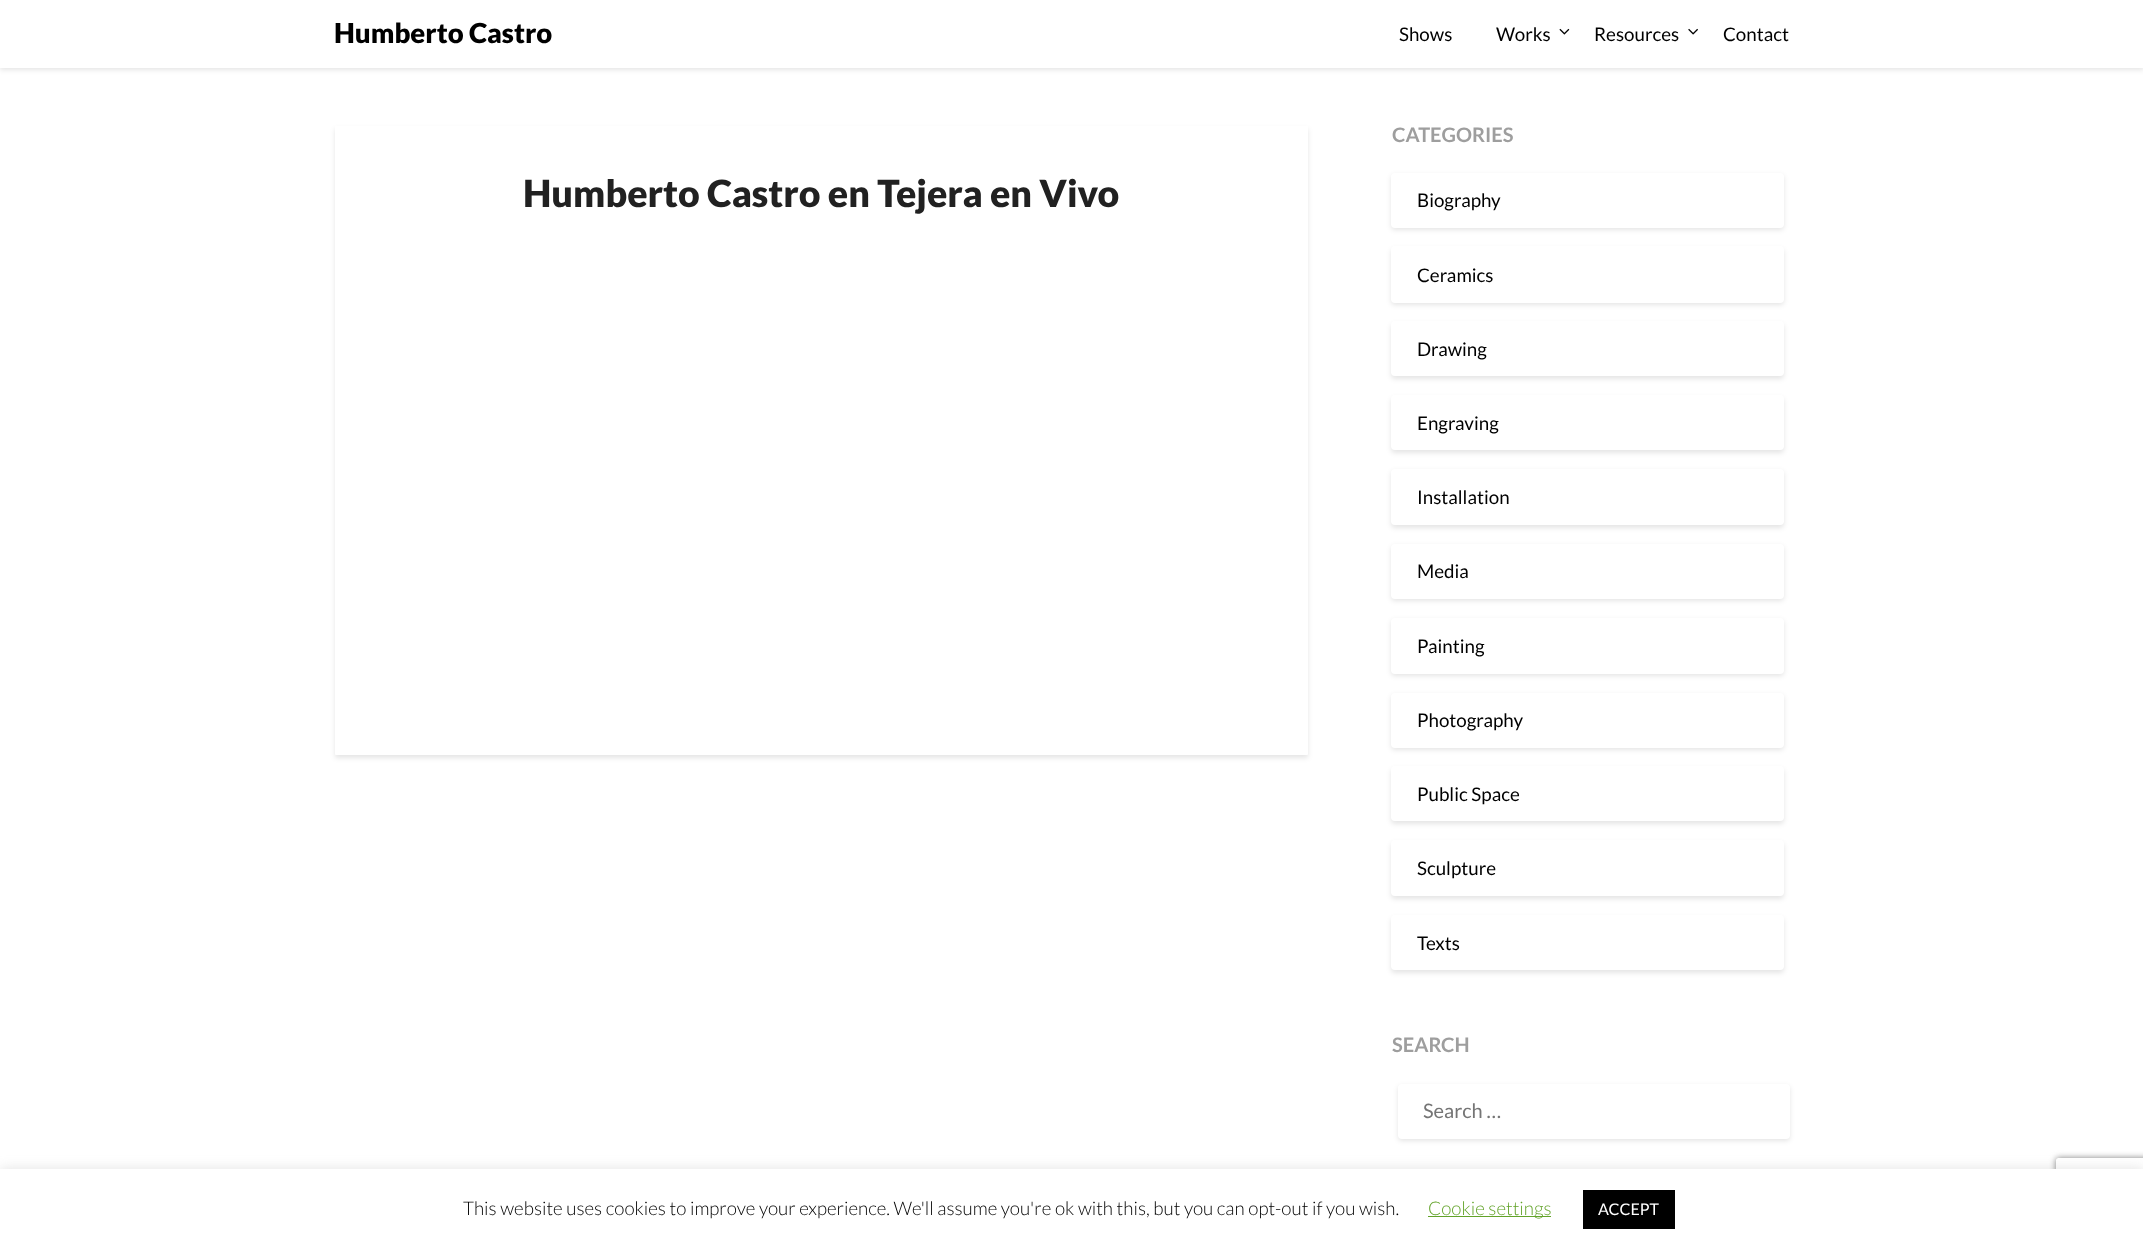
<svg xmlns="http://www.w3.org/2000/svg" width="2143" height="1249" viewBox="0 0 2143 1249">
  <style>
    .t1 { font: 900 27.5px Lato; fill: #000; }
    .t2 { font: 18.75px Lato; fill: #000; }
    .t3 { font: 900 37.5px Lato; fill: #212121; }
    .t4 { font: bold 20px Lato; fill: #9e9e9e; }
    .t5 { font: 20px Lato; fill: #757575; }
    .t6 { font: 300 18.75px Lato; fill: #000; }
    .t7 { font: 300 18.75px Lato; fill: #62a329; }
    .t8 { font: 16px Lato; fill: #fff; }
  </style>
  <defs>
    <clipPath id="clip1"><path d="M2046 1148H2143V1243H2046ZM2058.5 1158H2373.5C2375 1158 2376 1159 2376 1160.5V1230.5C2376 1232 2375 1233 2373.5 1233H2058.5C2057 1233 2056 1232 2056 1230.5V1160.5C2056 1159 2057 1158 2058.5 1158Z" clip-rule="evenodd"/></clipPath>
  </defs>
  <rect width="100%" height="100%" fill="#fff"/>
  <rect x="0" y="3" width="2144" height="67" fill="#0000001a" filter="blur(2.5px)"/>
  <rect x="0" y="0" width="2143" height="68" fill="#fff"/>
  <text x="334" y="43" class="t1">Humberto Castro</text>
  <text x="1399" y="41" class="t2">Shows</text>
  <text x="1496" y="41" class="t2">Works</text>
  <image x="1559" y="28" width="11" height="7" href="images/1.png"/>
  <text x="1594" y="41" class="t2">Resources</text>
  <image x="1688" y="28" width="10" height="7" href="images/2.png"/>
  <text x="1723" y="41" class="t2">Contact</text>
  <rect x="335" y="129" width="973" height="629" rx="1" fill="#0000001a" filter="blur(2.5px)"/>
  <rect x="335" y="126" width="973" height="629" rx="1" fill="#fff"/>
  <text x="523" y="207" class="t3">Humberto Castro en Tejera en Vivo</text>
  <text x="1392" y="142" class="t4">CATEGORIES</text>
  <rect x="1391" y="175" width="393" height="55" rx="4" fill="#0000001a" filter="blur(2.5px)"/>
  <rect x="1391" y="173" width="393" height="55" rx="4" fill="#fff"/>
  <text x="1417" y="207" class="t2">Biography</text>
  <rect x="1391" y="249" width="393" height="56" rx="4" fill="#0000001a" filter="blur(2.5px)"/>
  <rect x="1391" y="246" width="393" height="57" rx="4" fill="#fff"/>
  <text x="1417" y="282" class="t2">Ceramics</text>
  <rect x="1391" y="324" width="393" height="55" rx="4" fill="#0000001a" filter="blur(2.5px)"/>
  <rect x="1391" y="321" width="393" height="55" rx="4" fill="#fff"/>
  <text x="1417" y="356" class="t2">Drawing</text>
  <rect x="1391" y="398" width="393" height="55" rx="4" fill="#0000001a" filter="blur(2.5px)"/>
  <rect x="1391" y="395" width="393" height="55" rx="4" fill="#fff"/>
  <text x="1417" y="430" class="t2">Engraving</text>
  <rect x="1391" y="471" width="393" height="57" rx="4" fill="#0000001a" filter="blur(2.5px)"/>
  <rect x="1391" y="469" width="393" height="56" rx="4" fill="#fff"/>
  <text x="1417" y="504" class="t2">Installation</text>
  <rect x="1391" y="546" width="393" height="55" rx="4" fill="#0000001a" filter="blur(2.5px)"/>
  <rect x="1391" y="544" width="393" height="55" rx="4" fill="#fff"/>
  <text x="1417" y="578" class="t2">Media</text>
  <rect x="1391" y="620" width="393" height="56" rx="4" fill="#0000001a" filter="blur(2.5px)"/>
  <rect x="1391" y="618" width="393" height="56" rx="4" fill="#fff"/>
  <text x="1417" y="653" class="t2">Painting</text>
  <rect x="1391" y="695" width="393" height="55" rx="4" fill="#0000001a" filter="blur(2.5px)"/>
  <rect x="1391" y="693" width="393" height="55" rx="4" fill="#fff"/>
  <text x="1417" y="727" class="t2">Photography</text>
  <rect x="1391" y="769" width="393" height="55" rx="4" fill="#0000001a" filter="blur(2.5px)"/>
  <rect x="1391" y="766" width="393" height="55" rx="4" fill="#fff"/>
  <text x="1417" y="801" class="t2">Public Space</text>
  <rect x="1391" y="843" width="393" height="56" rx="4" fill="#0000001a" filter="blur(2.5px)"/>
  <rect x="1391" y="840" width="393" height="56" rx="4" fill="#fff"/>
  <text x="1417" y="875" class="t2">Sculpture</text>
  <rect x="1391" y="918" width="393" height="55" rx="4" fill="#0000001a" filter="blur(2.5px)"/>
  <rect x="1391" y="915" width="393" height="55" rx="4" fill="#fff"/>
  <text x="1417" y="950" class="t2">Texts</text>
  <text x="1392" y="1052" class="t4">SEARCH</text>
  <rect x="1398" y="1086" width="392" height="55" rx="4" fill="#0000001a" filter="blur(2.5px)"/>
  <rect x="1398" y="1084" width="392" height="55" rx="4" fill="#fff"/>
  <text x="1423" y="1118" class="t5">Search …</text>
  <rect x="0" y="1168" width="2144" height="81" fill="#acabab4d" filter="blur(6px)"/>
  <g clip-path="url(#clip1)">
    <rect x="2056" y="1158" width="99" height="75" rx="2.5" fill="#808080" filter="blur(3px)"/>
  </g>
  <rect x="0" y="1169" width="2143" height="80" fill="#fff"/>
  <text x="463" y="1215" class="t6">This website uses cookies to improve your experience. We'll assume you're ok with this, but you can opt-out if you wish.</text>
  <rect x="1428" y="1216" width="123" height="1" fill="#62a329"/>
  <text x="1428" y="1215" class="t7">Cookie settings</text>
  <rect x="1583" y="1190" width="92" height="39" fill="#000"/>
  <text x="1598" y="1215" class="t8">ACCEPT</text>
</svg>
